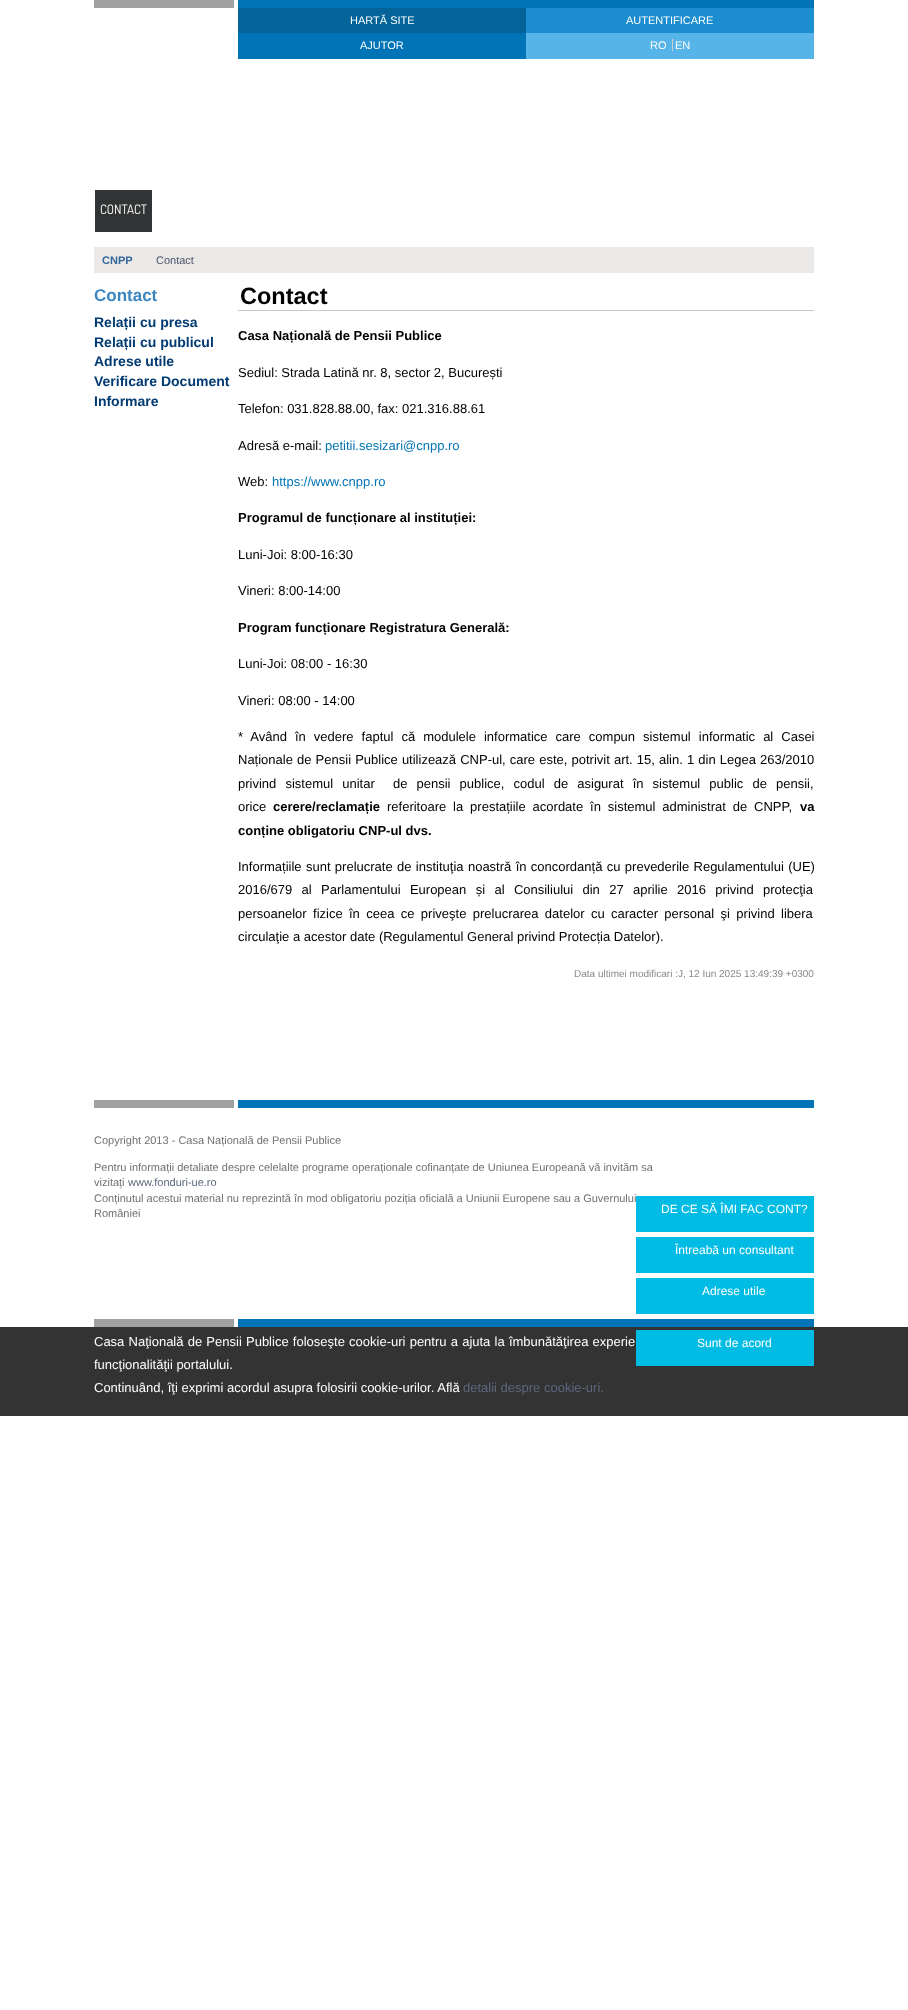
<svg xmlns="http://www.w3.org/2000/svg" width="908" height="2010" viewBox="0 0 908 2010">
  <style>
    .t1 { font: 11px Liberation Sans; fill: #fff; }
    .t2 { font: 13px Dosis; fill: #fff; }
    .t3 { font: bold 11px Liberation Sans; fill: #369; }
    .t4 { font: 11px Liberation Sans; fill: #4b5567; }
    .t5 { font: bold 17px Liberation Sans; fill: #3c86c0; }
    .t6 { font: bold 14px Liberation Sans; fill: #013b72; }
    .t7 { font: bold 23.5px Liberation Sans; fill: #000; }
    .t8 { font: bold 13px Liberation Sans; fill: #000; }
    .t9 { font: 13px Liberation Sans; fill: #000; }
    .t10 { font: 13px Liberation Sans; fill: #0074b6; }
    .t11 { font: 10px Liberation Sans; fill: #888; }
    .t12 { font: 11px Liberation Sans; fill: #717174; }
    .t13 { font: 11px Liberation Sans; fill: #5b677d; }
    .t14 { font: 12px Liberation Sans; fill: #fff; }
    .t15 { font: 13px Liberation Sans; fill: #fff; }
    .t16 { font: 13px Liberation Sans; fill: #5b677d; }
  </style>
  <rect width="100%" height="100%" fill="#fff"/>
  <rect x="94" y="0" width="140" height="8" fill="#a1a1a1"/>
  <rect x="238" y="0" width="576" height="8" fill="#0074b6"/>
  <rect x="238" y="8" width="288" height="25" fill="#046399"/>
  <text x="350" y="24" class="t1">HARTĂ SITE</text>
  <rect x="238" y="33" width="288" height="26" fill="#0074b6"/>
  <text x="360" y="49" class="t1">AJUTOR</text>
  <rect x="526" y="8" width="288" height="25" fill="#1c8ecf"/>
  <text x="626" y="24" class="t1">AUTENTIFICARE</text>
  <rect x="526" y="33" width="288" height="26" fill="#56b4e9"/>
  <text x="650" y="49" class="t1">RO</text>
  <rect x="672" y="39" width="1" height="12" fill="#ccc"/>
  <text x="675" y="49" class="t1">EN</text>
  <rect x="95" y="190" width="57" height="42" fill="#313334"/>
  <text x="100" y="214" class="t2">CONTACT</text>
  <rect x="94" y="247" width="720" height="26" fill="#ebe8e8"/>
  <text x="102" y="264" class="t3">CNPP</text>
  <text x="156" y="264" class="t4">Contact</text>
  <text x="94" y="301" class="t5">Contact</text>
  <text x="94" y="327" class="t6">Relații cu presa</text>
  <text x="94" y="347" class="t6">Relații cu publicul</text>
  <text x="94" y="366" class="t6">Adrese utile</text>
  <text x="94" y="386" class="t6">Verificare Document</text>
  <text x="94" y="406" class="t6">Informare</text>
  <rect x="238" y="310" width="576" height="1" fill="#c8c9ca"/>
  <text x="240" y="304" class="t7">Contact</text>
  <text x="238" y="340" class="t8">Casa Națională de Pensii Publice</text>
  <text x="238" y="377" class="t9">Sediul: Strada Latină nr. 8, sector 2, București</text>
  <text x="238" y="413" class="t9">Telefon: 031.828.88.00, fax: 021.316.88.61</text>
  <text x="238" y="450" class="t9">Adresă e-mail:</text>
  <text x="325" y="450" class="t10">petitii.sesizari@cnpp.ro</text>
  <text x="238" y="486" class="t9">Web:</text>
  <text x="272" y="486" class="t10">https://www.cnpp.ro</text>
  <text x="238" y="522" class="t8">Programul de funcționare al instituției:</text>
  <text x="238" y="559" class="t9">Luni-Joi: 8:00-16:30</text>
  <text x="238" y="595" class="t9">Vineri: 8:00-14:00</text>
  <text x="238" y="632" class="t8">Program funcționare Registratura Generală:</text>
  <text x="238" y="668" class="t9">Luni-Joi: 08:00 - 16:30</text>
  <text x="238" y="705" class="t9">Vineri: 08:00 - 14:00</text>
  <text x="238" y="741" word-spacing="4.4" class="t9">* Având în vedere faptul că modulele informatice care compun sistemul informatic al Casei</text>
  <text x="238" y="764" word-spacing="0.5" class="t9">Naționale de Pensii Publice utilizează CNP-ul, care este, potrivit art. 15, alin. 1 din Legea 263/2010</text>
  <text x="238" y="788" word-spacing="5.5" class="t9" xml:space="preserve">privind sistemul unitar  de pensii publice, codul de asigurat în sistemul public de pensii,</text>
  <text x="238" y="811" class="t9">orice</text>
  <text x="273" y="811" class="t8">cerere/reclamație</text>
  <text x="387" y="811" word-spacing="3.25" class="t9">referitoare la prestațiile acordate în sistemul administrat de CNPP,</text>
  <text x="800" y="811" class="t8">va</text>
  <text x="238" y="835" class="t8">conține obligatoriu CNP-ul dvs.</text>
  <text x="238" y="871" word-spacing="0.75" class="t9">Informațiile sunt prelucrate de instituţia noastră în concordanță cu prevederile Regulamentului (UE)</text>
  <text x="238" y="894" word-spacing="5.75" class="t9">2016/679 al Parlamentului European și al Consiliului din 27 aprilie 2016 privind protecţia</text>
  <text x="238" y="918" word-spacing="2.75" class="t9">persoanelor fizice în ceea ce priveşte prelucrarea datelor cu caracter personal şi privind libera</text>
  <text x="238" y="941" class="t9">circulaţie a acestor date (Regulamentul General privind Protecția Datelor).</text>
  <text x="574" y="977" class="t11">Data ultimei modificari :J, 12 Iun 2025 13:49:39 +0300</text>
  <rect x="94" y="1100" width="140" height="8" fill="#a1a1a1"/>
  <rect x="238" y="1100" width="576" height="8" fill="#0074b6"/>
  <text x="94" y="1144" class="t12">Copyright 2013 - Casa Națională de Pensii Publice</text>
  <text x="94" y="1171" class="t12">Pentru informații detaliate despre celelalte programe operaționale cofinanțate de Uniunea Europeană vă invităm sa</text>
  <text x="94" y="1186" class="t12">vizitați</text>
  <text x="128" y="1186" class="t13">www.fonduri-ue.ro</text>
  <text x="94" y="1202" class="t12">Conținutul acestui material nu reprezintă în mod obligatoriu poziția oficială a Uniunii Europene sau a Guvernului</text>
  <text x="94" y="1217" class="t12">României</text>
  <rect x="636" y="1196" width="178" height="36" fill="#00bce4"/>
  <text x="661" y="1213" class="t14">DE CE SĂ ÎMI FAC CONT?</text>
  <rect x="636" y="1237" width="178" height="36" fill="#00bce4"/>
  <text x="675" y="1254" class="t14">Întreabă un consultant</text>
  <rect x="636" y="1278" width="178" height="36" fill="#00bce4"/>
  <text x="702" y="1295" class="t14">Adrese utile</text>
  <rect x="94" y="1319" width="140" height="8" fill="#a1a1a1"/>
  <rect x="238" y="1319" width="576" height="8" fill="#0074b6"/>
  <rect x="0" y="1327" width="908" height="89" fill="#333"/>
  <text x="94" y="1346" word-spacing="0.6" class="t15">Casa Naţională de Pensii Publice foloseşte cookie-uri pentru a ajuta la îmbunătăţirea experie</text>
  <text x="94" y="1369" class="t15">funcţionalităţii portalului.</text>
  <text x="94" y="1392" class="t15">Continuând, îţi exprimi acordul asupra folosirii cookie-urilor. Află</text>
  <text x="463" y="1392" class="t16">detalii despre cookie-uri.</text>
  <rect x="636" y="1330" width="178" height="36" fill="#00bce4"/>
  <text x="697" y="1347" class="t14">Sunt de acord</text>
</svg>
